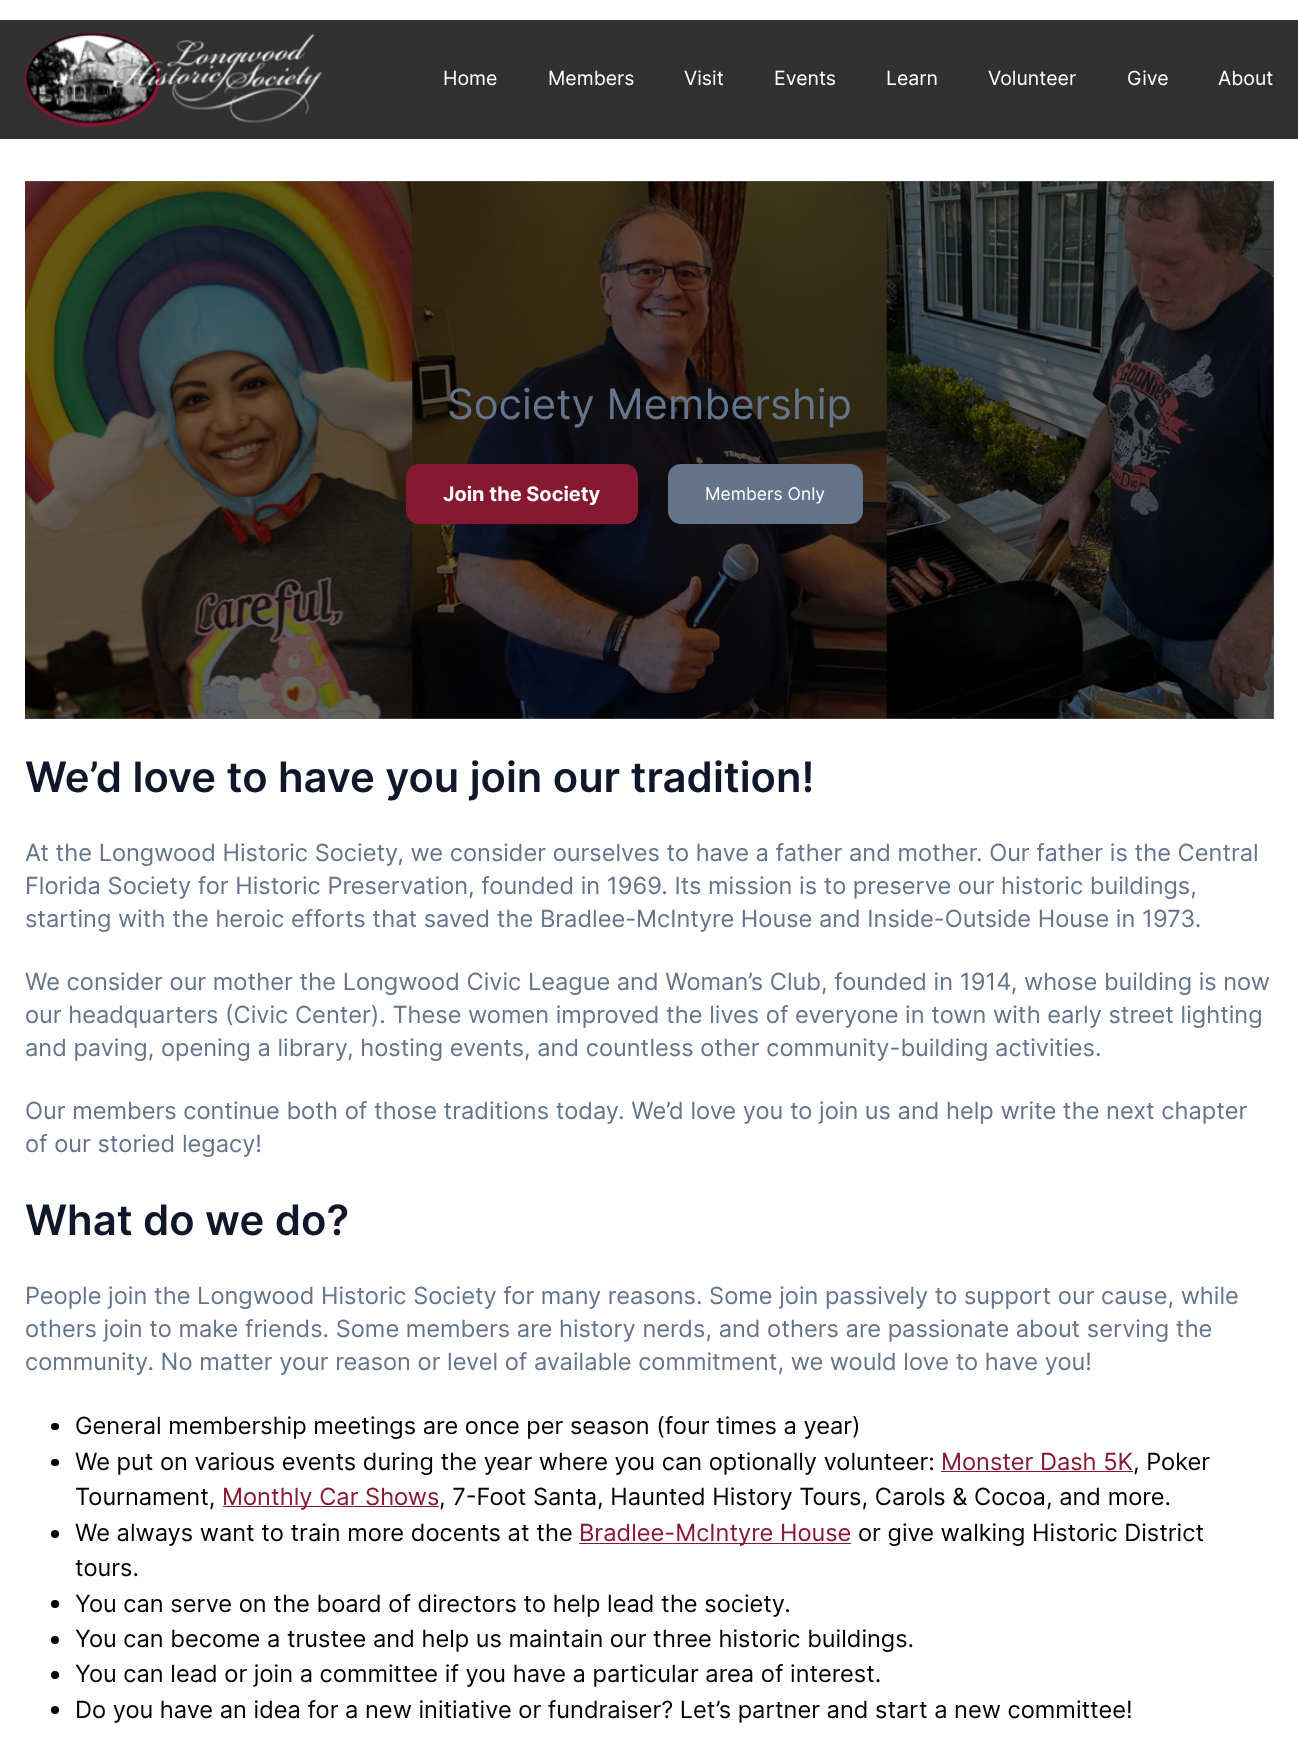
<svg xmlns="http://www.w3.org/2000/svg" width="1298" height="1740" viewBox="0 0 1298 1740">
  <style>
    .t1 { font: 19.5px Inter; fill: #fff; }
    .t2 { font: 41.8px Inter; fill: #64748b; }
    .t3 { font: bold 20px Inter; fill: #fff; }
    .t4 { font: 17.5px Inter; fill: #fff; }
    .t5 { font: 600 41.8px Inter; fill: #0f172a; }
    .t6 { font: 23.63px Inter; fill: #64748b; }
    .t7 { font: 23.63px Inter; fill: #000; }
    .t8 { font: 23.63px Inter; fill: #871831; }
  </style>
  <rect width="100%" height="100%" fill="#fff"/>
  <rect x="25" y="181" width="1249" height="538" fill="#666"/>
  <rect x="0" y="20" width="1298" height="119" fill="#313131"/>
  <image x="25" y="32" width="297" height="95" href="images/1.png"/>
  <text x="443" y="85" class="t1">Home</text>
  <text x="548" y="85" class="t1">Members</text>
  <text x="684" y="85" class="t1">Visit</text>
  <text x="774" y="85" class="t1">Events</text>
  <text x="886" y="85" class="t1">Learn</text>
  <text x="988" y="85" class="t1">Volunteer</text>
  <text x="1127" y="85" class="t1">Give</text>
  <text x="1218" y="85" class="t1">About</text>
  <image x="25" y="181" width="1249" height="538" href="images/2.png"/>
  <text x="447" y="419" class="t2">Society Membership</text>
  <rect x="406" y="464" width="232" height="60" rx="13" fill="#871831"/>
  <text x="443" y="501" class="t3">Join the Society</text>
  <rect x="668" y="464" width="195" height="60" rx="13" fill="#64748b"/>
  <text x="705" y="500" class="t4">Members Only</text>
  <text x="25" y="792" class="t5">We’d love to have you join our tradition!</text>
  <text x="25" y="861" class="t6">At the Longwood Historic Society, we consider ourselves to have a father and mother. Our father is the Central</text>
  <text x="25" y="894" class="t6">Florida Society for Historic Preservation, founded in 1969. Its mission is to preserve our historic buildings,</text>
  <text x="25" y="927" class="t6">starting with the heroic efforts that saved the Bradlee-McIntyre House and Inside-Outside House in 1973.</text>
  <text x="25" y="990" class="t6">We consider our mother the Longwood Civic League and Woman’s Club, founded in 1914, whose building is now</text>
  <text x="25" y="1023" class="t6">our headquarters (Civic Center). These women improved the lives of everyone in town with early street lighting</text>
  <text x="25" y="1056" class="t6">and paving, opening a library, hosting events, and countless other community-building activities.</text>
  <text x="25" y="1119" class="t6">Our members continue both of those traditions today. We’d love you to join us and help write the next chapter</text>
  <text x="25" y="1152" class="t6">of our storied legacy!</text>
  <text x="25" y="1235" class="t5">What do we do?</text>
  <text x="25" y="1304" class="t6">People join the Longwood Historic Society for many reasons. Some join passively to support our cause, while</text>
  <text x="25" y="1337" class="t6">others join to make friends. Some members are history nerds, and others are passionate about serving the</text>
  <text x="25" y="1370" class="t6">community. No matter your reason or level of available commitment, we would love to have you!</text>
  <rect x="51" y="1423" width="8" height="7" rx="3.5" fill="#000"/>
  <text x="75" y="1434" class="t7">General membership meetings are once per season (four times a year)</text>
  <rect x="51" y="1459" width="8" height="7" rx="3.5" fill="#000"/>
  <text x="75" y="1470" class="t7">We put on various events during the year where you can optionally volunteer:</text>
  <text x="941" y="1470" class="t8">Monster Dash 5K</text>
  <rect x="941" y="1471" width="192" height="1" fill="#871831"/>
  <text x="1133" y="1470" class="t7">, Poker</text>
  <text x="75" y="1505" class="t7">Tournament,</text>
  <rect x="223" y="1506" width="216" height="1" fill="#871831"/>
  <text x="222" y="1505" class="t8">Monthly Car Shows</text>
  <text x="439" y="1505" class="t7">, 7-Foot Santa, Haunted History Tours, Carols &amp; Cocoa, and more.</text>
  <circle cx="55" cy="1534" r="4" fill="#000"/>
  <text x="75" y="1541" class="t7">We always want to train more docents at the</text>
  <rect x="579" y="1543" width="272" height="1" fill="#871831"/>
  <text x="579" y="1541" class="t8">Bradlee-McIntyre House</text>
  <text x="858" y="1541" class="t7">or give walking Historic District</text>
  <text x="75" y="1576" class="t7">tours.</text>
  <circle cx="55" cy="1604" r="4" fill="#000"/>
  <text x="75" y="1612" class="t7">You can serve on the board of directors to help lead the society.</text>
  <circle cx="55" cy="1640" r="4" fill="#000"/>
  <text x="75" y="1647" class="t7">You can become a trustee and help us maintain our three historic buildings.</text>
  <circle cx="55" cy="1675" r="4" fill="#000"/>
  <text x="75" y="1682" class="t7">You can lead or join a committee if you have a particular area of interest.</text>
  <circle cx="55" cy="1710" r="4" fill="#000"/>
  <text x="75" y="1718" class="t7">Do you have an idea for a new initiative or fundraiser? Let’s partner and start a new committee!</text>
</svg>
